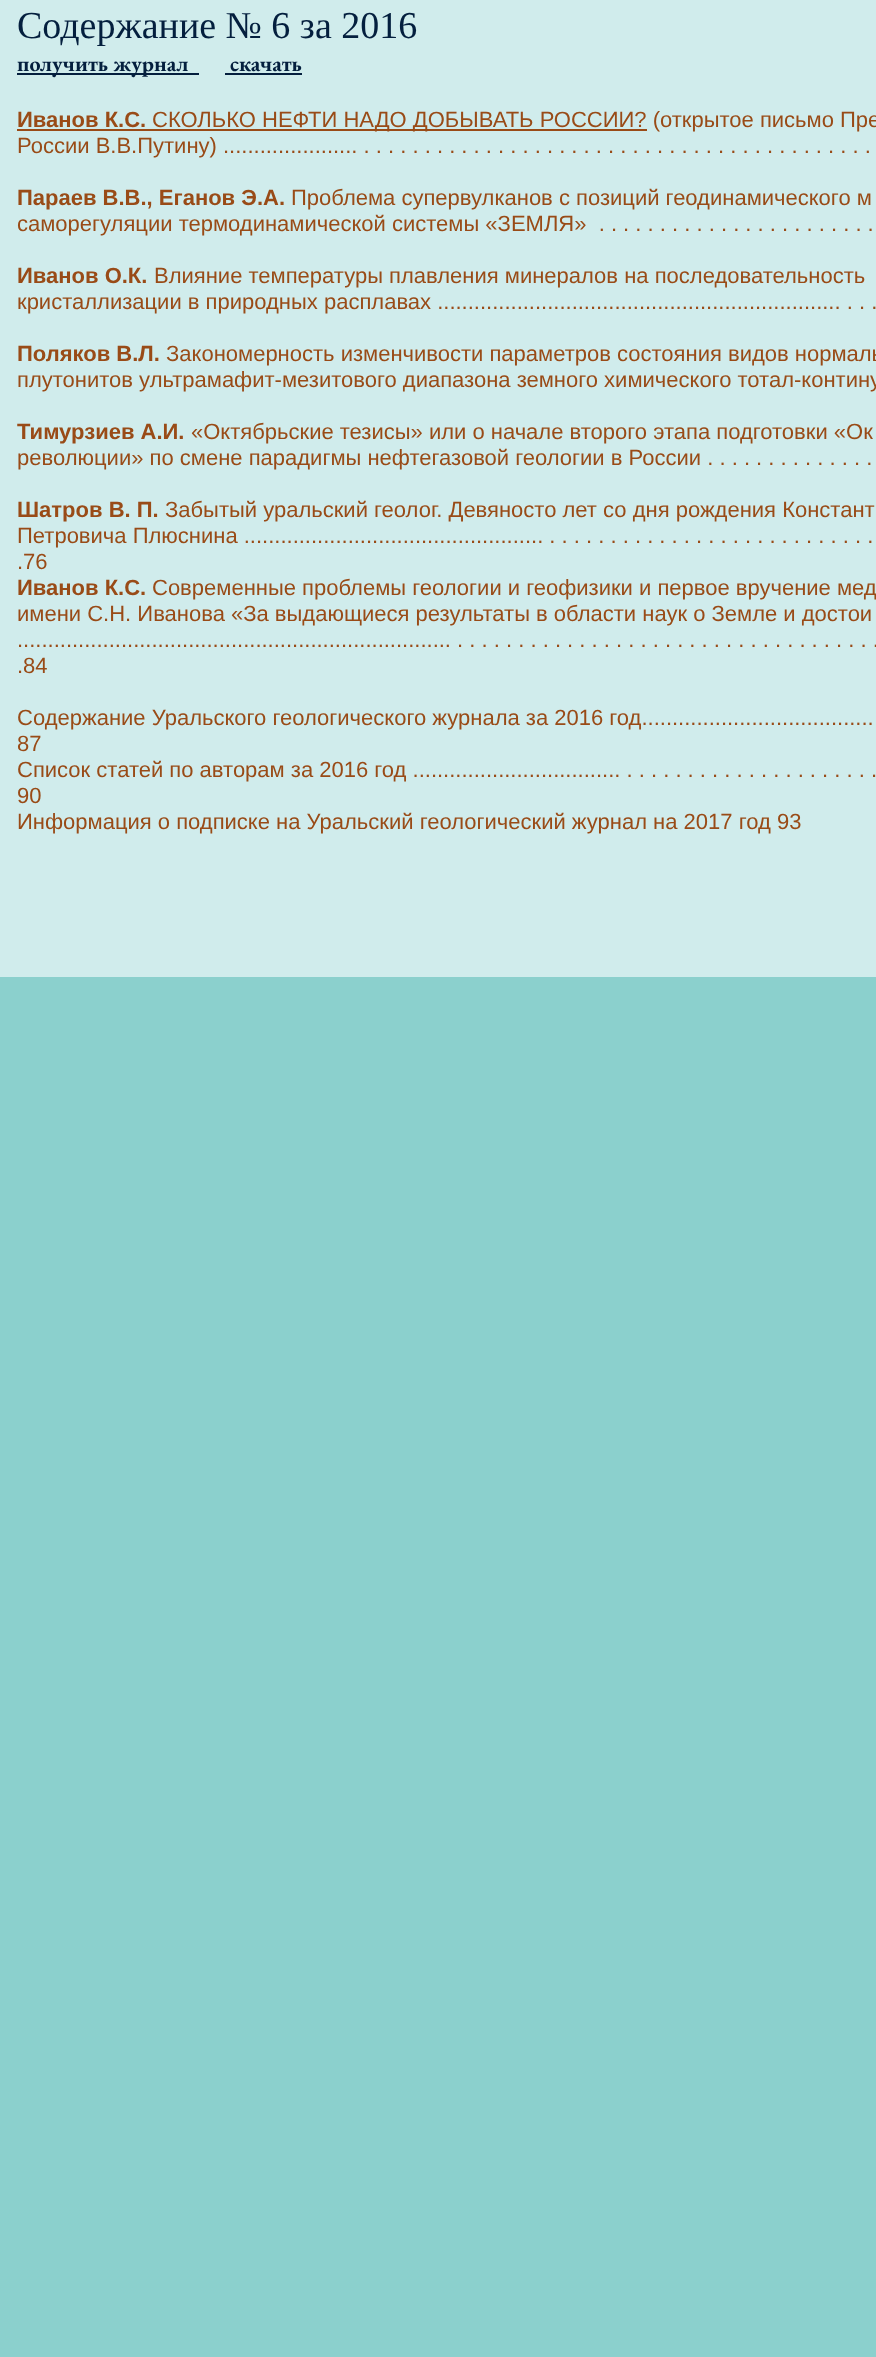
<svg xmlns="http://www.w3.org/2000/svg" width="876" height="2357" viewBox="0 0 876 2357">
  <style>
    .t1 { font: 38px Liberation Serif; fill: #041f3e; }
    .t2 { font: bold 22px EB Garamond; fill: #041f3e; }
    .t3 { font: bold 22px Liberation Sans; fill: #994b17; }
    .t4 { font: 22px Liberation Sans; fill: #994b17; }
  </style>
  <rect width="100%" height="100%" fill="#8bd0cd"/>
  <rect x="0" y="0" width="876" height="977" fill="#d0ecec"/>
  <text x="17" y="38" class="t1">Содержание № 6 за 2016</text>
  <rect x="17" y="73" width="182" height="2" fill="#041f3e"/>
  <text x="17" y="71" class="t2">получить журнал</text>
  <text x="230" y="71" class="t2">скачать</text>
  <rect x="225" y="73" width="77" height="2" fill="#041f3e"/>
  <text x="17" y="127" class="t3">Иванов К.С.</text>
  <rect x="17" y="129" width="630" height="2" fill="#994b17"/>
  <text x="152" y="127" class="t4">СКОЛЬКО НЕФТИ НАДО ДОБЫВАТЬ РОССИИ? (открытое письмо Пре</text>
  <text x="17" y="153" class="t4">России В.В.Путину) ...................... . . . . . . . . . . . . . . . . . . . . . . . . . . . . . . . . . . . . . . . . . .</text>
  <text x="17" y="205" class="t3">Параев В.В., Еганов Э.А.</text>
  <text x="291" y="205" class="t4">Проблема супервулканов с позиций геодинамического м</text>
  <text x="17" y="231" class="t4" xml:space="preserve">саморегуляции термодинамической системы «ЗЕМЛЯ»  . . . . . . . . . . . . . . . . . . . . . . .</text>
  <text x="17" y="283" class="t3">Иванов О.К.</text>
  <text x="154" y="283" class="t4">Влияние температуры плавления минералов на последовательность</text>
  <text x="17" y="309" class="t4">кристаллизации в природных расплавах .................................................................. . . .</text>
  <text x="17" y="361" class="t3">Поляков В.Л.</text>
  <text x="166" y="361" class="t4">Закономерность изменчивости параметров состояния видов нормаль</text>
  <text x="17" y="387" class="t4">плутонитов ультрамафит-мезитового диапазона земного химического тотал-контину</text>
  <text x="17" y="439" class="t3">Тимурзиев А.И.</text>
  <text x="191" y="439" class="t4">«Октябрьские тезисы» или о начале второго этапа подготовки «Ок</text>
  <text x="17" y="465" class="t4">революции» по смене парадигмы нефтегазовой геологии в России . . . . . . . . . . . . . .</text>
  <text x="17" y="517" class="t3">Шатров В. П.</text>
  <text x="165" y="517" class="t4">Забытый уральский геолог. Девяносто лет со дня рождения Констант</text>
  <text x="17" y="543" class="t4">Петровича Плюснина ................................................. . . . . . . . . . . . . . . . . . . . . . . . . . . .</text>
  <text x="17" y="569" class="t4">.76</text>
  <text x="17" y="595" class="t3">Иванов К.С.</text>
  <text x="152" y="595" class="t4">Современные проблемы геологии и геофизики и первое вручение мед</text>
  <text x="17" y="621" class="t4">имени С.Н. Иванова «За выдающиеся результаты в области наук о Земле и достои</text>
  <text x="17" y="647" class="t4">....................................................................... . . . . . . . . . . . . . . . . . . . . . . . . . . . . . . . . . . .</text>
  <text x="17" y="673" class="t4">.84</text>
  <text x="17" y="725" class="t4">Содержание Уральского геологического журнала за 2016 год......................................</text>
  <text x="17" y="751" class="t4">87</text>
  <text x="17" y="777" class="t4">Список статей по авторам за 2016 год .................................. . . . . . . . . . . . . . . . . . . . . .</text>
  <text x="17" y="803" class="t4">90</text>
  <text x="17" y="829" class="t4">Информация о подписке на Уральский геологический журнал на 2017 год 93</text>
</svg>
